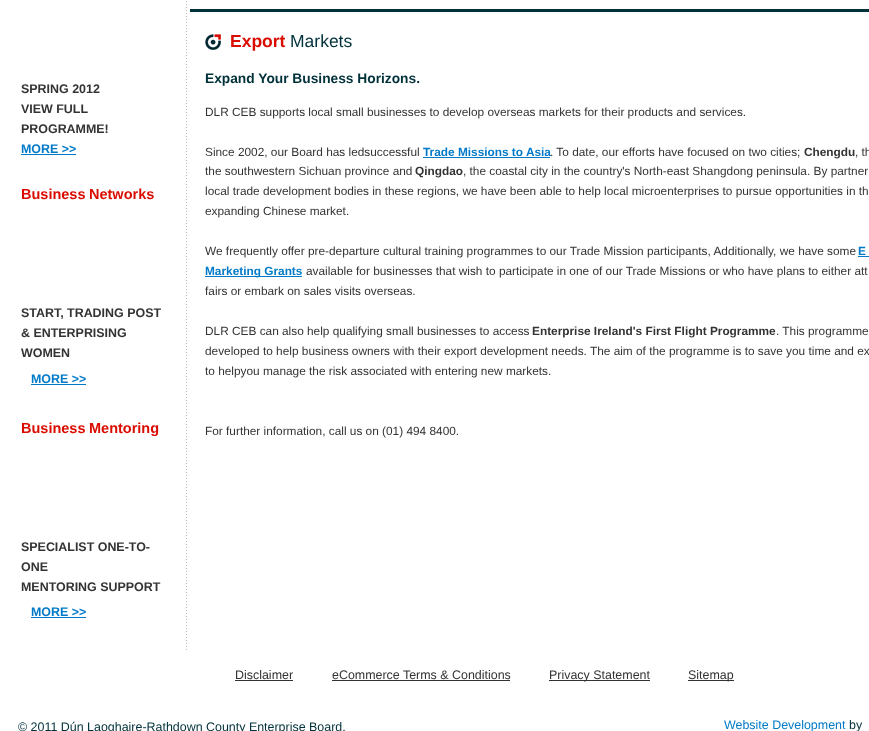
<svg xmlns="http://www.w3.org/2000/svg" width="869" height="731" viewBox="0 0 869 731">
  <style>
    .t1 { font: bold 12.45px Liberation Sans; fill: #333; }
    .t2 { font: bold 12.45px Liberation Sans; fill: #007ac8; }
    .t3 { font: bold 14.5px Liberation Sans; fill: #da0c00; }
    .t4 { font: bold 17.5px Liberation Sans; fill: #da0c00; }
    .t5 { font: 17.5px Liberation Sans; fill: #00313a; }
    .t6 { font: bold 13.75px Liberation Sans; fill: #00313a; }
    .t7 { font: 11.85px Liberation Sans; fill: #333; }
    .t8 { font: bold 11.85px Liberation Sans; fill: #007ac8; }
    .t9 { font: bold 11.85px Liberation Sans; fill: #333; }
    .t10 { font: 12.45px Liberation Sans; fill: #333; }
    .t11 { font: 12.45px Liberation Sans; fill: #00313a; }
    .t12 { font: 12.45px Liberation Sans; fill: #007ac8; }
  </style>
  <rect width="100%" height="100%" fill="#fff"/>
  <image x="0" y="0" width="869" height="652" href="images/1.png"/>
  <rect x="190" y="9" width="679" height="3" fill="#00313a"/>
  <text x="21" y="93" class="t1">SPRING 2012</text>
  <text x="21" y="113" class="t1">VIEW FULL</text>
  <text x="21" y="133" class="t1">PROGRAMME!</text>
  <text x="21" y="153" class="t2">MORE &gt;&gt;</text>
  <rect x="21" y="154" width="55" height="1" fill="#007ac8"/>
  <text x="21" y="199" class="t3">Business</text>
  <text x="89" y="199" class="t3">Networks</text>
  <text x="21" y="317" class="t1">START, TRADING POST</text>
  <text x="21" y="337" class="t1">&amp; ENTERPRISING</text>
  <text x="21" y="357" class="t1">WOMEN</text>
  <text x="31" y="383" class="t2">MORE &gt;&gt;</text>
  <rect x="31" y="384" width="55" height="1" fill="#007ac8"/>
  <text x="21" y="433" class="t3">Business</text>
  <text x="89" y="433" class="t3">Mentoring</text>
  <text x="21" y="551" class="t1">SPECIALIST ONE-TO-</text>
  <text x="21" y="571" class="t1">ONE</text>
  <text x="21" y="591" class="t1">MENTORING SUPPORT</text>
  <text x="31" y="616" class="t2">MORE &gt;&gt;</text>
  <rect x="31" y="617" width="55" height="1" fill="#007ac8"/>
  <image x="205" y="34" width="16" height="16" href="images/2.png"/>
  <text x="230" y="47" class="t4">Export</text>
  <text x="290" y="47" class="t5">Markets</text>
  <text x="205" y="83" class="t6">Expand Your Business Horizons.</text>
  <text x="205" y="116" class="t7">DLR CEB supports local small businesses to develop overseas markets for their products and services.</text>
  <text x="205" y="156" class="t7">Since 2002, our Board has ledsuccessful</text>
  <text x="423" y="156" class="t8">Trade Missions to Asia</text>
  <rect x="423" y="157" width="127" height="1" fill="#007ac8"/>
  <text x="550" y="156" class="t7">. To date, our efforts have focused on two cities;</text>
  <text x="804" y="156" class="t9">Chengdu</text>
  <text x="855" y="156" class="t7">, th</text>
  <text x="205" y="175" class="t7">the southwestern Sichuan province and</text>
  <text x="415" y="175" class="t9">Qingdao</text>
  <text x="463" y="175" class="t7">, the coastal city in the country's North-east Shangdong peninsula. By partner</text>
  <text x="205" y="195" class="t7">local trade development bodies in these regions, we have been able to help local microenterprises to pursue opportunities in th</text>
  <text x="205" y="215" class="t7">expanding Chinese market.</text>
  <text x="205" y="255" class="t7">We frequently offer pre-departure cultural training programmes to our Trade Mission participants, Additionally, we have some</text>
  <text x="858" y="255" class="t8">E</text>
  <rect x="858" y="256" width="11" height="1" fill="#007ac8"/>
  <rect x="205" y="276" width="97" height="1" fill="#007ac8"/>
  <text x="205" y="275" class="t8">Marketing Grants</text>
  <text x="306" y="275" class="t7">available for businesses that wish to participate in one of our Trade Missions or who have plans to either att</text>
  <text x="205" y="295" class="t7">fairs or embark on sales visits overseas.</text>
  <text x="205" y="335" class="t7">DLR CEB can also help qualifying small businesses to access</text>
  <text x="532" y="335" class="t9">Enterprise Ireland's First Flight Programme</text>
  <text x="776" y="335" class="t7">. This programme</text>
  <text x="205" y="355" class="t7">developed to help business owners with their export development needs. The aim of the programme is to save you time and ex</text>
  <text x="205" y="375" class="t7">to helpyou manage the risk associated with entering new markets.</text>
  <text x="205" y="435" class="t7">For further information, call us on (01) 494 8400.</text>
  <text x="235" y="679" class="t10">Disclaimer</text>
  <rect x="235" y="680" width="58" height="1" fill="#333"/>
  <text x="332" y="679" class="t10">eCommerce Terms &amp; Conditions</text>
  <rect x="332" y="680" width="178" height="1" fill="#333"/>
  <rect x="549" y="680" width="101" height="1" fill="#333"/>
  <text x="549" y="679" class="t10">Privacy Statement</text>
  <rect x="688" y="680" width="46" height="1" fill="#333"/>
  <text x="688" y="679" class="t10">Sitemap</text>
  <text x="18" y="731" class="t11">© 2011 Dún Laoghaire-Rathdown County Enterprise Board,</text>
  <text x="724" y="729" class="t12">Website Development</text>
  <text x="849" y="729" class="t11">by</text>
</svg>
